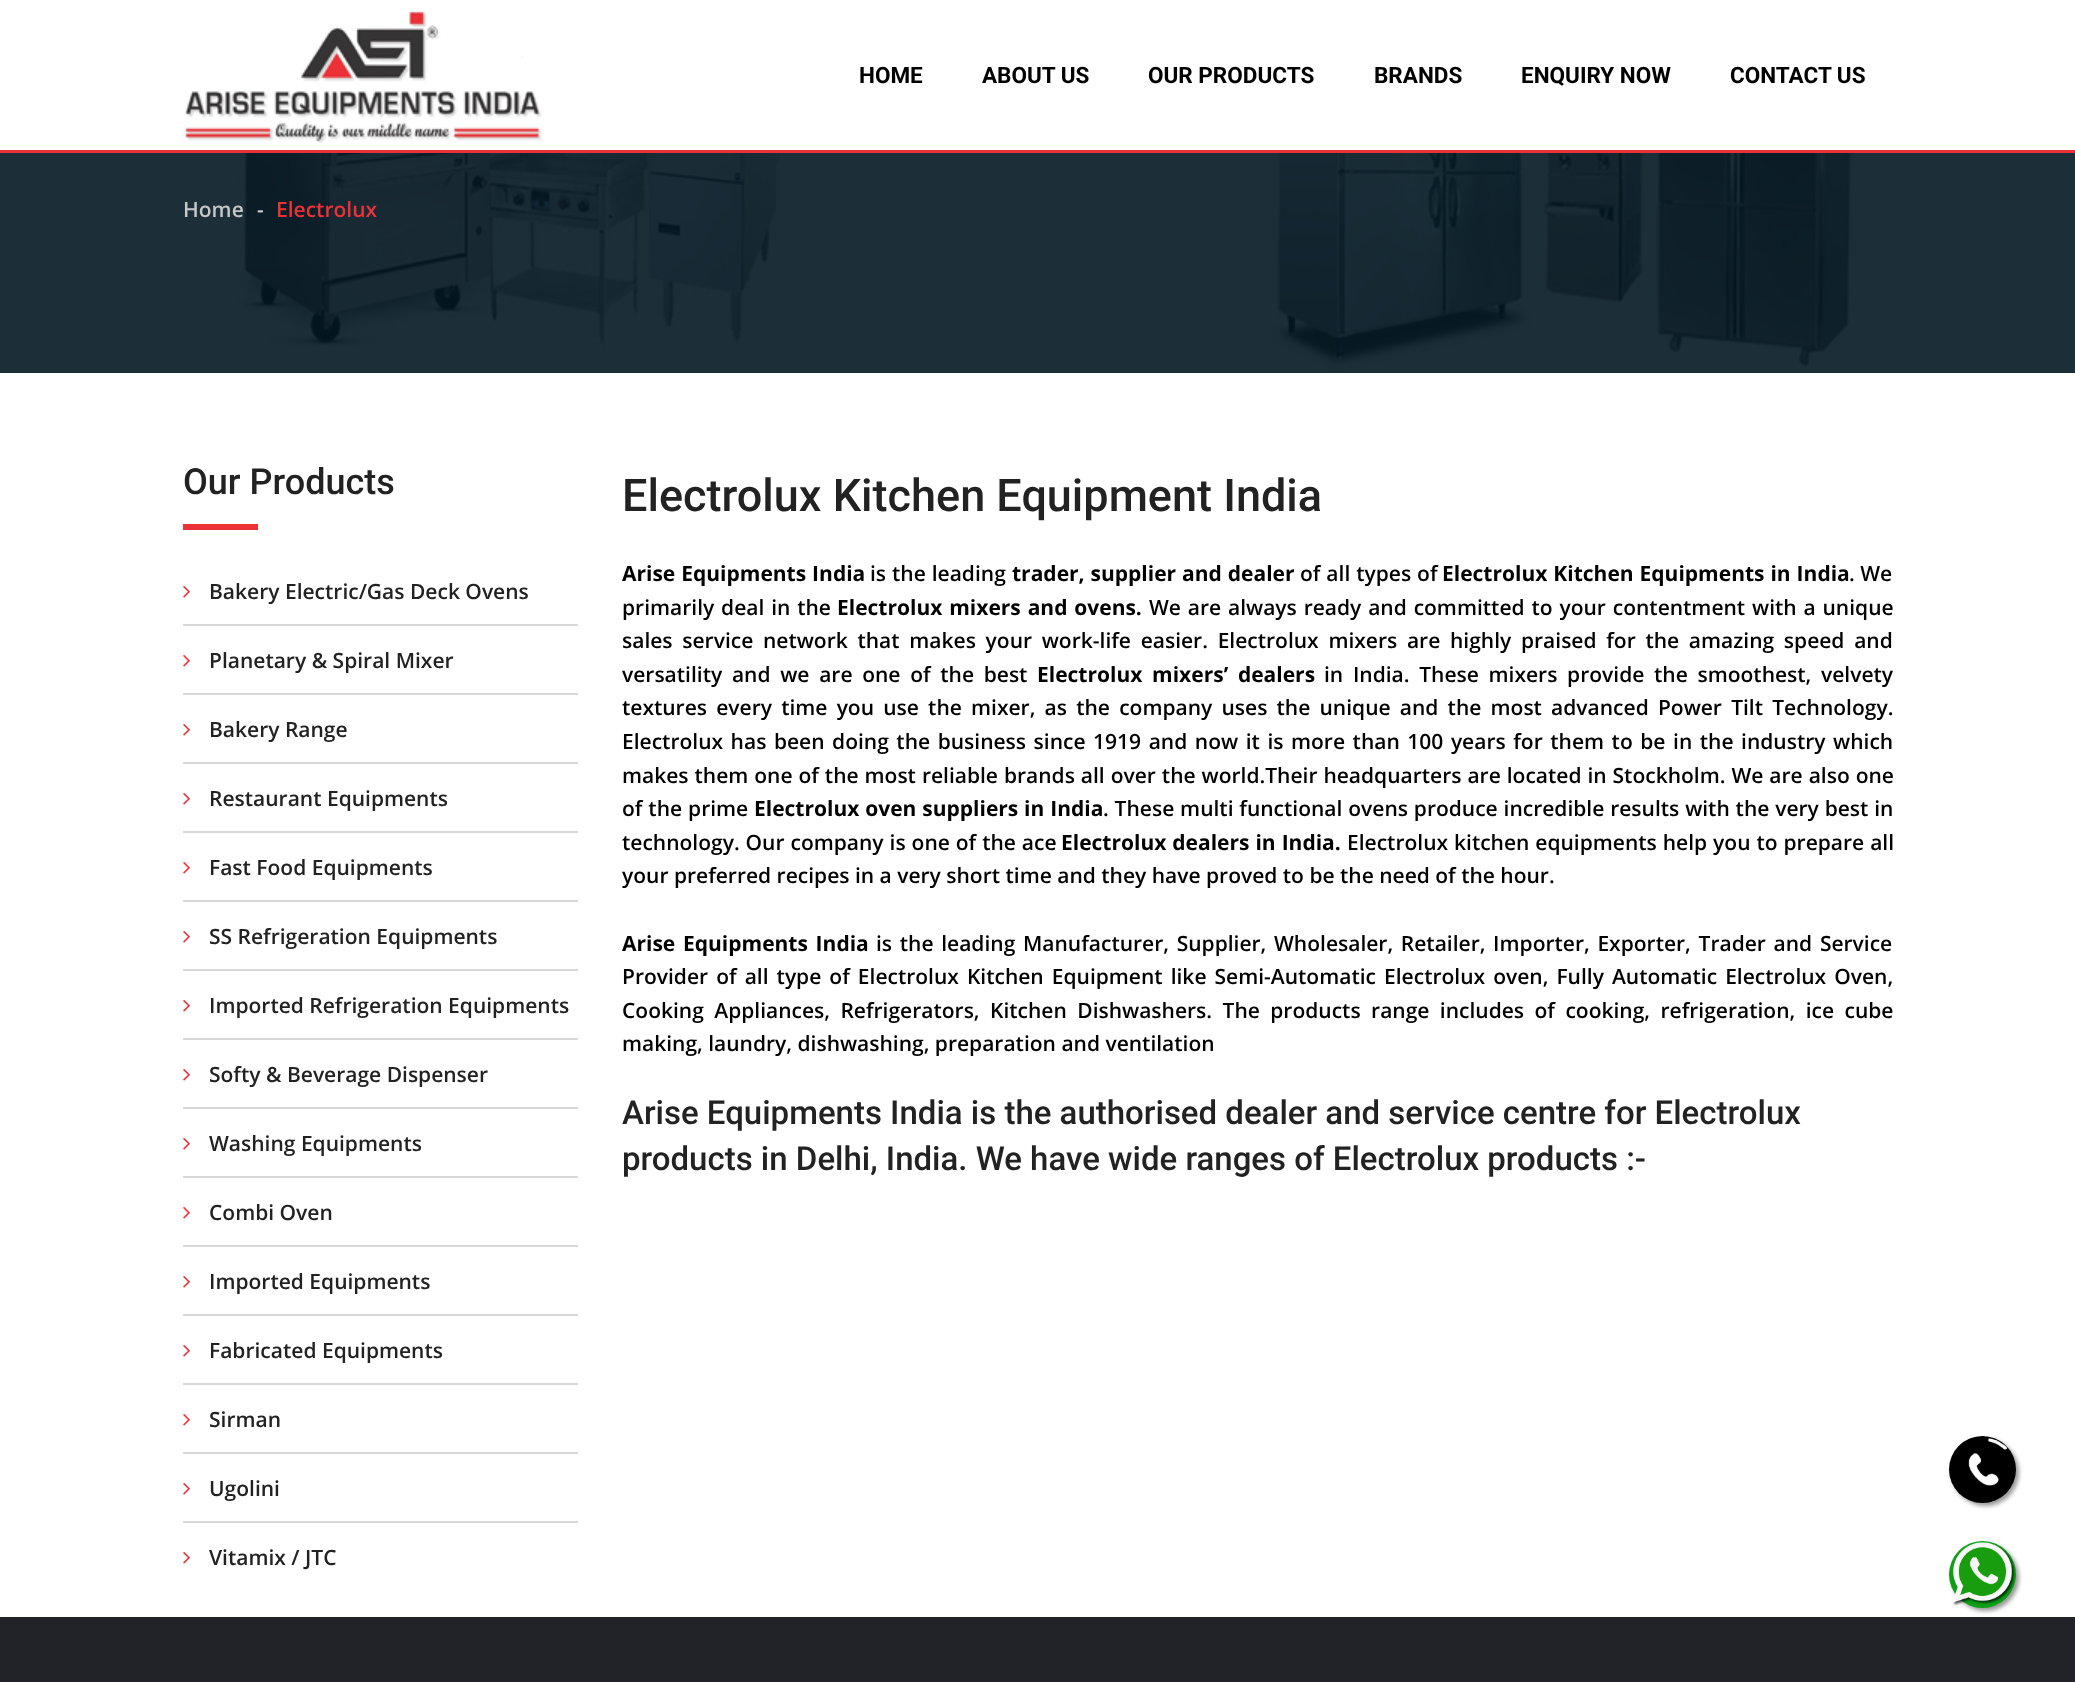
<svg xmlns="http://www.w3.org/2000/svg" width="2075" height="1682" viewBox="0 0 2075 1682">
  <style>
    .t1 { font: bold 22.5px Roboto; fill: #000; }
    .t2 { font: 600 21px Open Sans; fill: #c6c6c6; }
    .t3 { font: 600 21px Open Sans; fill: #ccc; }
    .t4 { font: 600 21px Open Sans; fill: #ed3237; }
    .t5 { font: 500 36px Roboto; fill: #222; }
    .t6 { font: 600 21px Open Sans; fill: #222; }
    .t7 { font: 500 45px Roboto; fill: #222; }
    .t8 { font: bold 21px Open Sans; fill: #000; }
    .t9 { font: 600 21px Open Sans; fill: #000; }
    .t10 { font: 500 33px Roboto; fill: #222; }
  </style>
  <rect width="100%" height="100%" fill="#fff"/>
  <rect x="0" y="150" width="2075" height="3" fill="#ed3237"/>
  <image x="184" y="9" width="358" height="134" href="images/1.png"/>
  <text x="859" y="83" class="t1">HOME</text>
  <text x="982" y="83" class="t1">ABOUT US</text>
  <text x="1148" y="83" class="t1">OUR PRODUCTS</text>
  <text x="1374" y="83" class="t1">BRANDS</text>
  <text x="1521" y="83" class="t1">ENQUIRY NOW</text>
  <text x="1730" y="83" class="t1">CONTACT US</text>
  <image x="0" y="153" width="2075" height="220" href="images/2.png"/>
  <text x="183" y="217" class="t2">Home</text>
  <text x="257" y="217" class="t3">-</text>
  <text x="276" y="217" class="t4">Electrolux</text>
  <text x="183" y="494" class="t5">Our Products</text>
  <rect x="183" y="524" width="75" height="6" fill="#ed3237"/>
  <rect x="183" y="624" width="395" height="2" fill="#d7d7d7"/>
  <image x="183" y="586" width="7" height="12" href="images/3.png"/>
  <text x="209" y="599" class="t6">Bakery Electric/Gas Deck Ovens</text>
  <rect x="183" y="693" width="395" height="2" fill="#d7d7d7"/>
  <image x="183" y="655" width="7" height="12" href="images/3.png"/>
  <text x="209" y="668" class="t6">Planetary &amp; Spiral Mixer</text>
  <rect x="183" y="762" width="395" height="2" fill="#d7d7d7"/>
  <image x="183" y="724" width="7" height="12" href="images/3.png"/>
  <text x="209" y="737" class="t6">Bakery Range</text>
  <rect x="183" y="831" width="395" height="2" fill="#d7d7d7"/>
  <image x="183" y="793" width="7" height="12" href="images/3.png"/>
  <text x="209" y="806" class="t6">Restaurant Equipments</text>
  <rect x="183" y="900" width="395" height="2" fill="#d7d7d7"/>
  <image x="183" y="862" width="7" height="12" href="images/3.png"/>
  <text x="209" y="875" class="t6">Fast Food Equipments</text>
  <rect x="183" y="969" width="395" height="2" fill="#d7d7d7"/>
  <image x="183" y="931" width="7" height="12" href="images/3.png"/>
  <text x="209" y="944" class="t6">SS Refrigeration Equipments</text>
  <rect x="183" y="1038" width="395" height="2" fill="#d7d7d7"/>
  <image x="183" y="1000" width="7" height="12" href="images/3.png"/>
  <text x="209" y="1013" class="t6">Imported Refrigeration Equipments</text>
  <rect x="183" y="1107" width="395" height="2" fill="#d7d7d7"/>
  <image x="183" y="1069" width="7" height="12" href="images/3.png"/>
  <text x="209" y="1082" class="t6">Softy &amp; Beverage Dispenser</text>
  <rect x="183" y="1176" width="395" height="2" fill="#d7d7d7"/>
  <image x="183" y="1138" width="7" height="12" href="images/3.png"/>
  <text x="209" y="1151" class="t6">Washing Equipments</text>
  <rect x="183" y="1245" width="395" height="2" fill="#d7d7d7"/>
  <image x="183" y="1207" width="7" height="12" href="images/3.png"/>
  <text x="209" y="1220" class="t6">Combi Oven</text>
  <rect x="183" y="1314" width="395" height="2" fill="#d7d7d7"/>
  <image x="183" y="1276" width="7" height="12" href="images/3.png"/>
  <text x="209" y="1289" class="t6">Imported Equipments</text>
  <rect x="183" y="1383" width="395" height="2" fill="#d7d7d7"/>
  <image x="183" y="1345" width="7" height="12" href="images/3.png"/>
  <text x="209" y="1358" class="t6">Fabricated Equipments</text>
  <rect x="183" y="1452" width="395" height="2" fill="#d7d7d7"/>
  <image x="183" y="1414" width="7" height="12" href="images/3.png"/>
  <text x="209" y="1427" class="t6">Sirman</text>
  <rect x="183" y="1521" width="395" height="2" fill="#d7d7d7"/>
  <image x="183" y="1483" width="7" height="12" href="images/3.png"/>
  <text x="209" y="1496" class="t6">Ugolini</text>
  <image x="183" y="1552" width="7" height="12" href="images/3.png"/>
  <text x="209" y="1565" class="t6">Vitamix / JTC</text>
  <text x="622" y="511" class="t7">Electrolux Kitchen Equipment India</text>
  <text x="622" y="581" word-spacing="0.5" class="t8">Arise Equipments India</text>
  <text x="870" y="581" word-spacing="0.5" class="t9">is the leading</text>
  <text x="1012" y="581" word-spacing="0.5" class="t8">trader, supplier and dealer</text>
  <text x="1300" y="581" word-spacing="0.5" class="t9">of all types of</text>
  <text x="1442" y="581" word-spacing="0.5" class="t8">Electrolux Kitchen Equipments in India</text>
  <text x="1849" y="581" class="t9">. We</text>
  <text x="622" y="615" word-spacing="1.4" class="t9">primarily deal in the</text>
  <text x="837" y="615" word-spacing="1.4" class="t8">Electrolux mixers and ovens.</text>
  <text x="1149" y="615" word-spacing="1.4" class="t9">We are always ready and committed to your contentment with a unique</text>
  <text x="622" y="648" word-spacing="4.25" class="t9">sales service network that makes your work-life easier. Electrolux mixers are highly praised for the amazing speed and</text>
  <text x="622" y="682" word-spacing="4.25" class="t9">versatility and we are one of the best</text>
  <text x="1037" y="682" word-spacing="4.25" class="t8">Electrolux mixers’ dealers</text>
  <text x="1324" y="682" word-spacing="4.25" class="t9">in India. These mixers provide the smoothest, velvety</text>
  <text x="622" y="715" word-spacing="3.75" class="t9">textures every time you use the mixer, as the company uses the unique and the most advanced Power Tilt Technology.</text>
  <text x="622" y="749" word-spacing="2.1" class="t9">Electrolux has been doing the business since 1919 and now it is more than 100 years for them to be in the industry which</text>
  <text x="622" y="783" word-spacing="0.5" class="t9">makes them one of the most reliable brands all over the world.Their headquarters are located in Stockholm. We are also one</text>
  <text x="622" y="816" word-spacing="0.5" class="t9">of the prime</text>
  <text x="754" y="816" word-spacing="0.4" class="t8">Electrolux oven suppliers in India</text>
  <text x="1103" y="816" word-spacing="0.4" class="t9">. These multi functional ovens produce incredible results with the very best in</text>
  <text x="622" y="850" word-spacing="0.5" class="t9">technology. Our company is one of the ace</text>
  <text x="1061" y="850" word-spacing="0.5" class="t8">Electrolux dealers in India.</text>
  <text x="1347" y="850" word-spacing="0.5" class="t9">Electrolux kitchen equipments help you to prepare all</text>
  <text x="622" y="883" class="t9">your preferred recipes in a very short time and they have proved to be the need of the hour.</text>
  <text x="622" y="951" word-spacing="2.25" class="t8">Arise Equipments India</text>
  <text x="876" y="951" word-spacing="2.25" class="t9">is the leading Manufacturer, Supplier, Wholesaler, Retailer, Importer, Exporter, Trader and Service</text>
  <text x="622" y="984" word-spacing="2.6" class="t9">Provider of all type of Electrolux Kitchen Equipment like Semi-Automatic Electrolux oven, Fully Automatic Electrolux Oven,</text>
  <text x="622" y="1018" word-spacing="5" class="t9">Cooking Appliances, Refrigerators, Kitchen Dishwashers. The products range includes of cooking, refrigeration, ice cube</text>
  <text x="622" y="1051" class="t9">making, laundry, dishwashing, preparation and ventilation</text>
  <text x="622" y="1124" class="t10">Arise Equipments India is the authorised dealer and service centre for Electrolux</text>
  <text x="622" y="1170" class="t10">products in Delhi, India. We have wide ranges of Electrolux products :-</text>
  <rect x="1952" y="1439" width="67" height="67" rx="33.5" fill="#999" filter="blur(2px)"/>
  <circle cx="1982.5" cy="1469.5" r="33.5" fill="#000"/>
  <image x="1968" y="1438" width="40" height="48" href="images/4.png"/>
  <rect x="0" y="1617" width="2075" height="65" fill="#222229"/>
  <rect x="1952" y="1544" width="67" height="67" rx="33.5" fill="#999" filter="blur(2px)"/>
  <circle cx="1982.5" cy="1574.5" r="33.5" fill="#0d9f16"/>
  <image x="1952" y="1542" width="64" height="64" href="images/5.png"/>
</svg>
